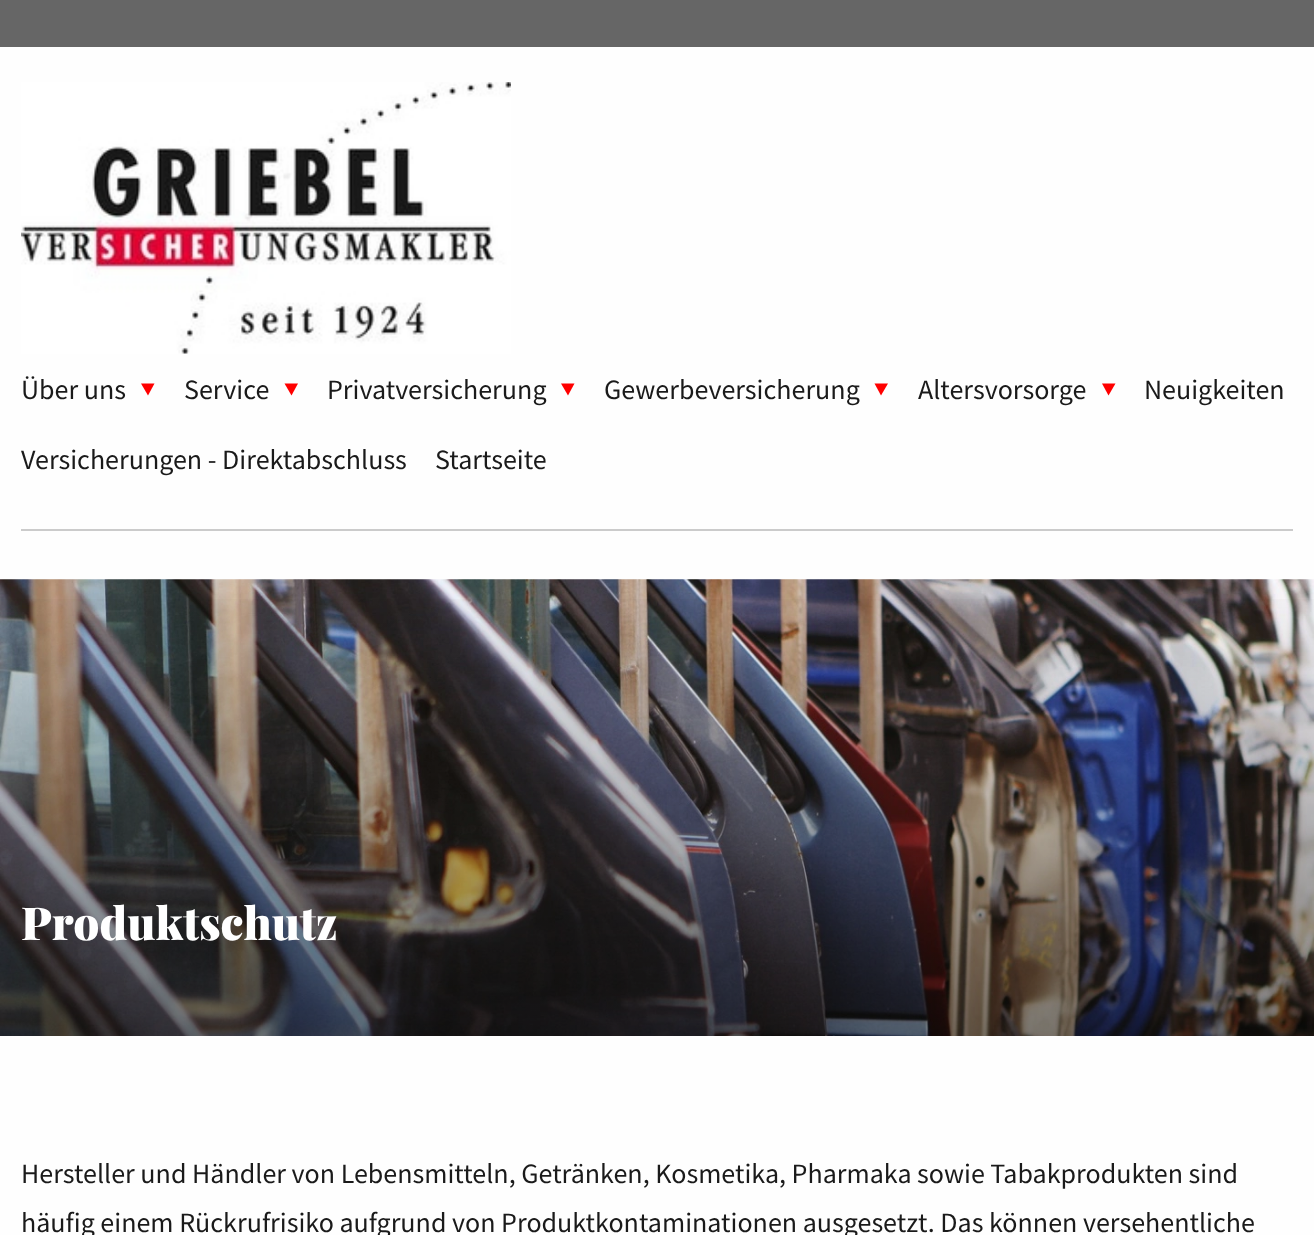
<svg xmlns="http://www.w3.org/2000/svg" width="1314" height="1235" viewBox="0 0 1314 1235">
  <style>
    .t1 { font: 28px Source Sans Pro; fill: #1a1a1a; }
    .t2 { font: 900 45.5px Playfair Display; fill: #fff; }
  </style>
  <defs>
    <linearGradient id="g1" gradientUnits="userSpaceOnUse" x1="657" y1="1036" x2="657" y2="579"><stop offset="0" stop-color="#000" stop-opacity="0.5"/><stop offset="1" stop-color="#000" stop-opacity="0"/></linearGradient>
  </defs>
  <rect width="100%" height="100%" fill="#fefefe"/>
  <rect x="0" y="0" width="1314" height="47" fill="#666"/>
  <rect x="21" y="529" width="1272" height="2" fill="#cbcbcb"/>
  <image x="21" y="82" width="490" height="272" href="images/1.png"/>
  <text x="21" y="399" class="t1">Über uns</text>
  <path d="M148 395.5L141 383.5H154.5Z" fill="#f00"/>
  <text x="184" y="399" class="t1">Service</text>
  <path d="M291.5 395.5L284.5 383.5H298Z" fill="#f00"/>
  <text x="327" y="399" class="t1">Privatversicherung</text>
  <path d="M568 395.5L561 383.5H574.5Z" fill="#f00"/>
  <text x="604" y="399" class="t1">Gewerbeversicherung</text>
  <path d="M881 395.5L874.5 383.5H888Z" fill="#f00"/>
  <text x="918" y="399" class="t1">Altersvorsorge</text>
  <path d="M1108.5 395.5L1102 383.5H1115.5Z" fill="#f00"/>
  <text x="1144" y="399" class="t1">Neuigkeiten</text>
  <text x="21" y="469" class="t1">Versicherungen - Direktabschluss</text>
  <text x="435" y="469" class="t1">Startseite</text>
  <image x="0" y="579" width="1314" height="457" href="images/2.png"/>
  <rect x="0" y="599" width="1314" height="437" fill="url(#g1)"/>
  <text x="21" y="940" class="t2">Produktschutz</text>
  <text x="21" y="1183" class="t1">Hersteller und Händler von Lebensmitteln, Getränken, Kosmetika, Pharmaka sowie Tabakprodukten sind</text>
  <text x="21" y="1232" class="t1">häufig einem Rückrufrisiko aufgrund von Produktkontaminationen ausgesetzt. Das können versehentliche</text>
</svg>
